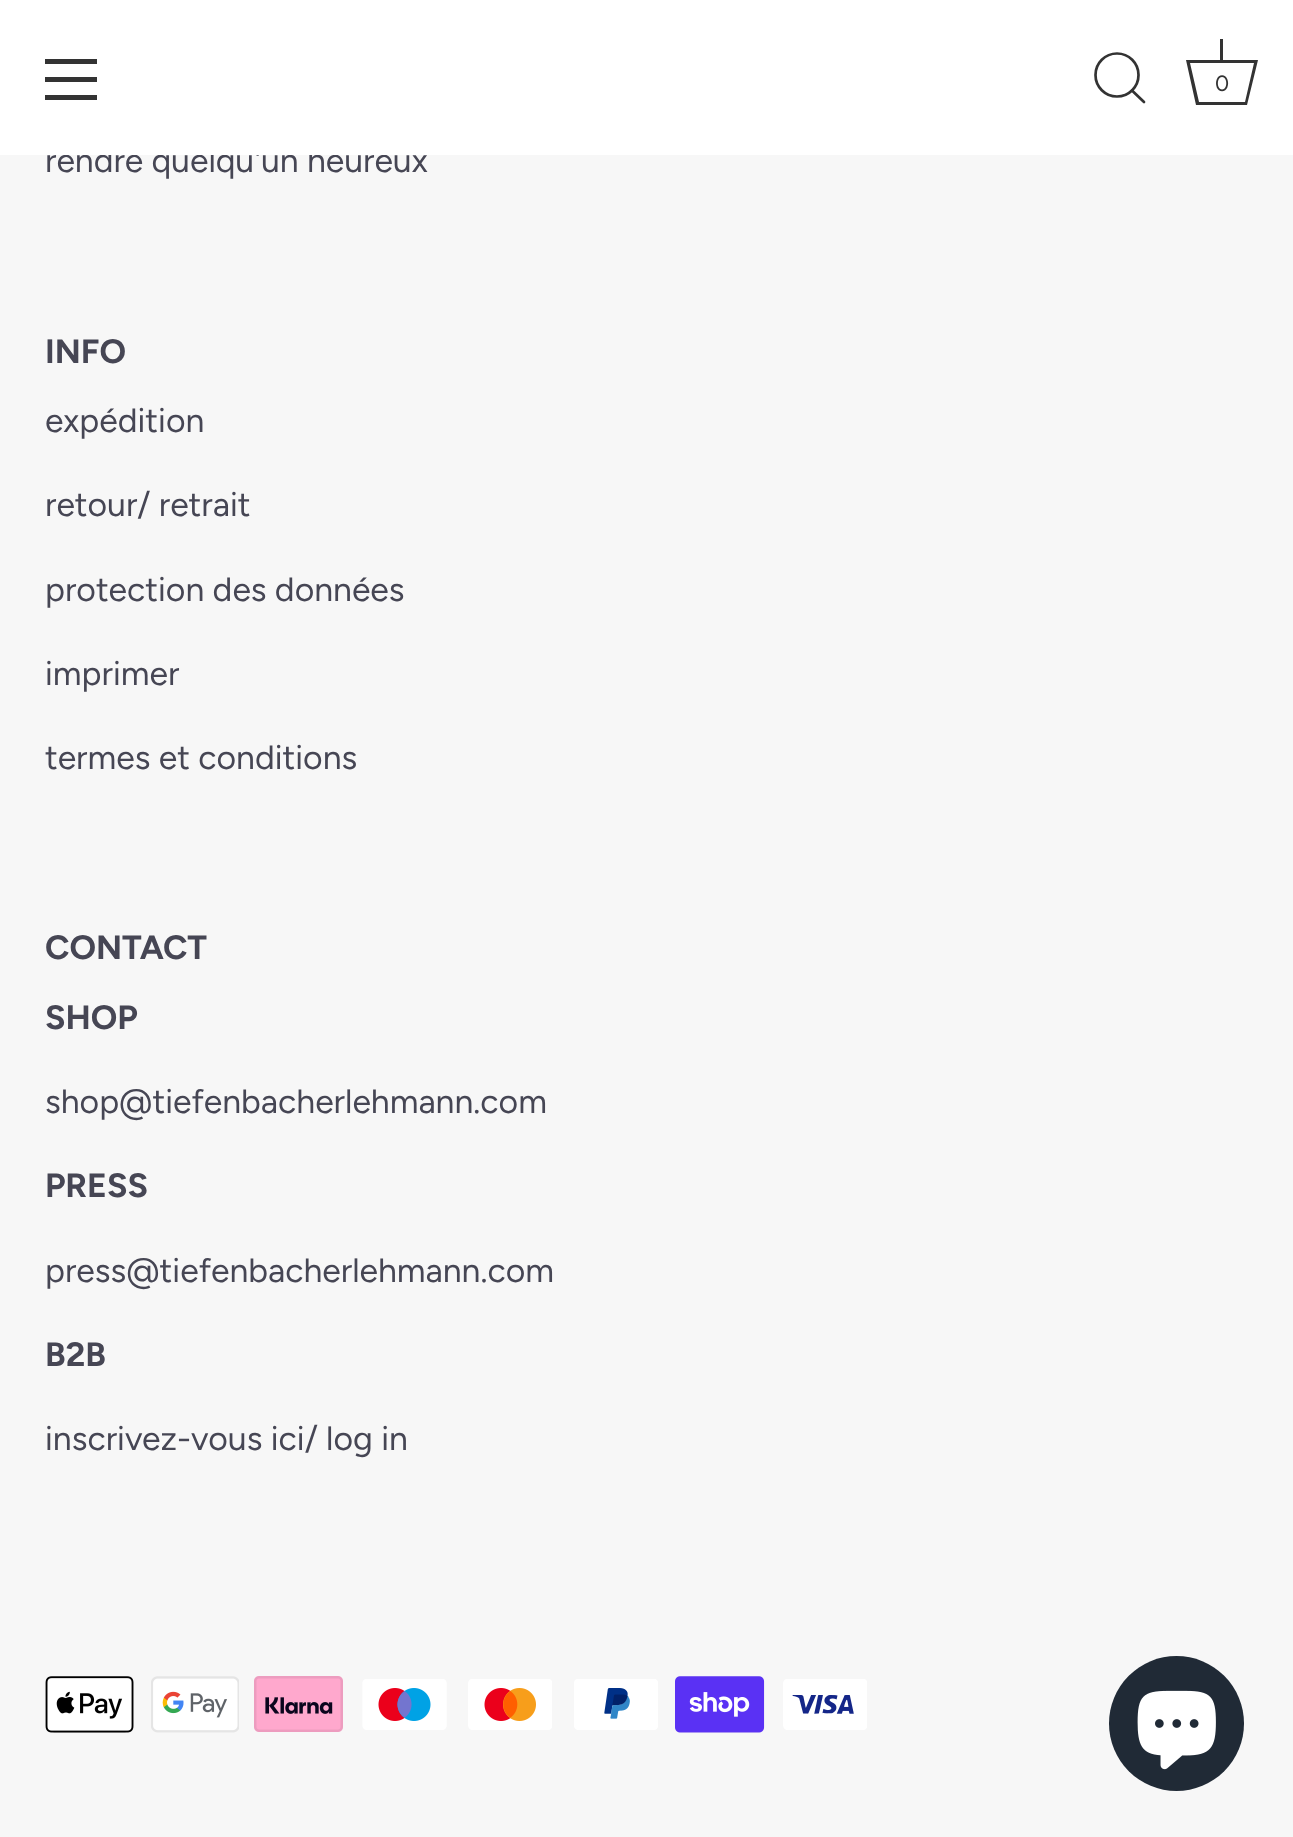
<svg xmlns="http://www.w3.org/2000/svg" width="1293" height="1837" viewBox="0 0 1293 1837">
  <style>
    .t1 { font: 33.75px Figtree; fill: #464654; }
    .t2 { font: 22px Figtree; fill: #333; }
    .t3 { font: bold 33.75px Figtree; fill: #464654; }
  </style>
  <rect width="100%" height="100%" fill="#f7f7f7"/>
  <text x="45" y="172" class="t1">rendre quelqu'un heureux</text>
  <rect x="0" y="0" width="1293" height="155" fill="#fff"/>
  <rect x="45" y="59" width="52" height="5" fill="#333"/>
  <rect x="45" y="77" width="52" height="5" fill="#333"/>
  <rect x="45" y="95" width="52" height="5" fill="#333"/>
  <circle cx="1117" cy="75" r="21.5" fill="none" stroke="#333" stroke-width="2.7"/>
  <path d="M1144 102L1132 90.5" fill="none" stroke="#333" stroke-width="2.7" stroke-linecap="round" stroke-linejoin="round"/>
  <rect x="1220" y="39" width="3" height="21" fill="#333"/>
  <path d="M1254 63L1245 102H1199L1190 63H1254M1258 60H1186L1196 105H1247Z" fill="#333"/>
  <text x="1215" y="91" class="t2">0</text>
  <text x="45" y="363" class="t3">INFO</text>
  <text x="45" y="432" class="t1">expédition</text>
  <text x="45" y="516" class="t1">retour/ retrait</text>
  <text x="45" y="601" class="t1">protection des données</text>
  <text x="45" y="685" class="t1">imprimer</text>
  <text x="45" y="769" class="t1">termes et conditions</text>
  <text x="45" y="959" class="t3">CONTACT</text>
  <text x="45" y="1029" class="t3">SHOP</text>
  <text x="45" y="1113" class="t1">shop@tiefenbacherlehmann.com</text>
  <text x="45" y="1197" class="t3">PRESS</text>
  <text x="45" y="1282" class="t1">press@tiefenbacherlehmann.com</text>
  <text x="45" y="1366" class="t3">B2B</text>
  <text x="45" y="1450" class="t1">inscrivez-vous ici/ log in</text>
  <image x="45" y="1676" width="89" height="57" href="images/1.png"/>
  <image x="151" y="1676" width="88" height="57" href="images/2.png"/>
  <image x="254" y="1676" width="89" height="56" href="images/3.png"/>
  <image x="362" y="1679" width="85" height="51" href="images/4.png"/>
  <image x="468" y="1679" width="84" height="51" href="images/5.png"/>
  <image x="574" y="1679" width="84" height="51" href="images/6.png"/>
  <image x="675" y="1676" width="90" height="57" href="images/7.png"/>
  <image x="783" y="1679" width="84" height="51" href="images/8.png"/>
  <circle cx="1176.5" cy="1723.5" r="67.5" fill="#202a36"/>
  <image x="1137" y="1690" width="79" height="80" href="images/9.png"/>
</svg>
